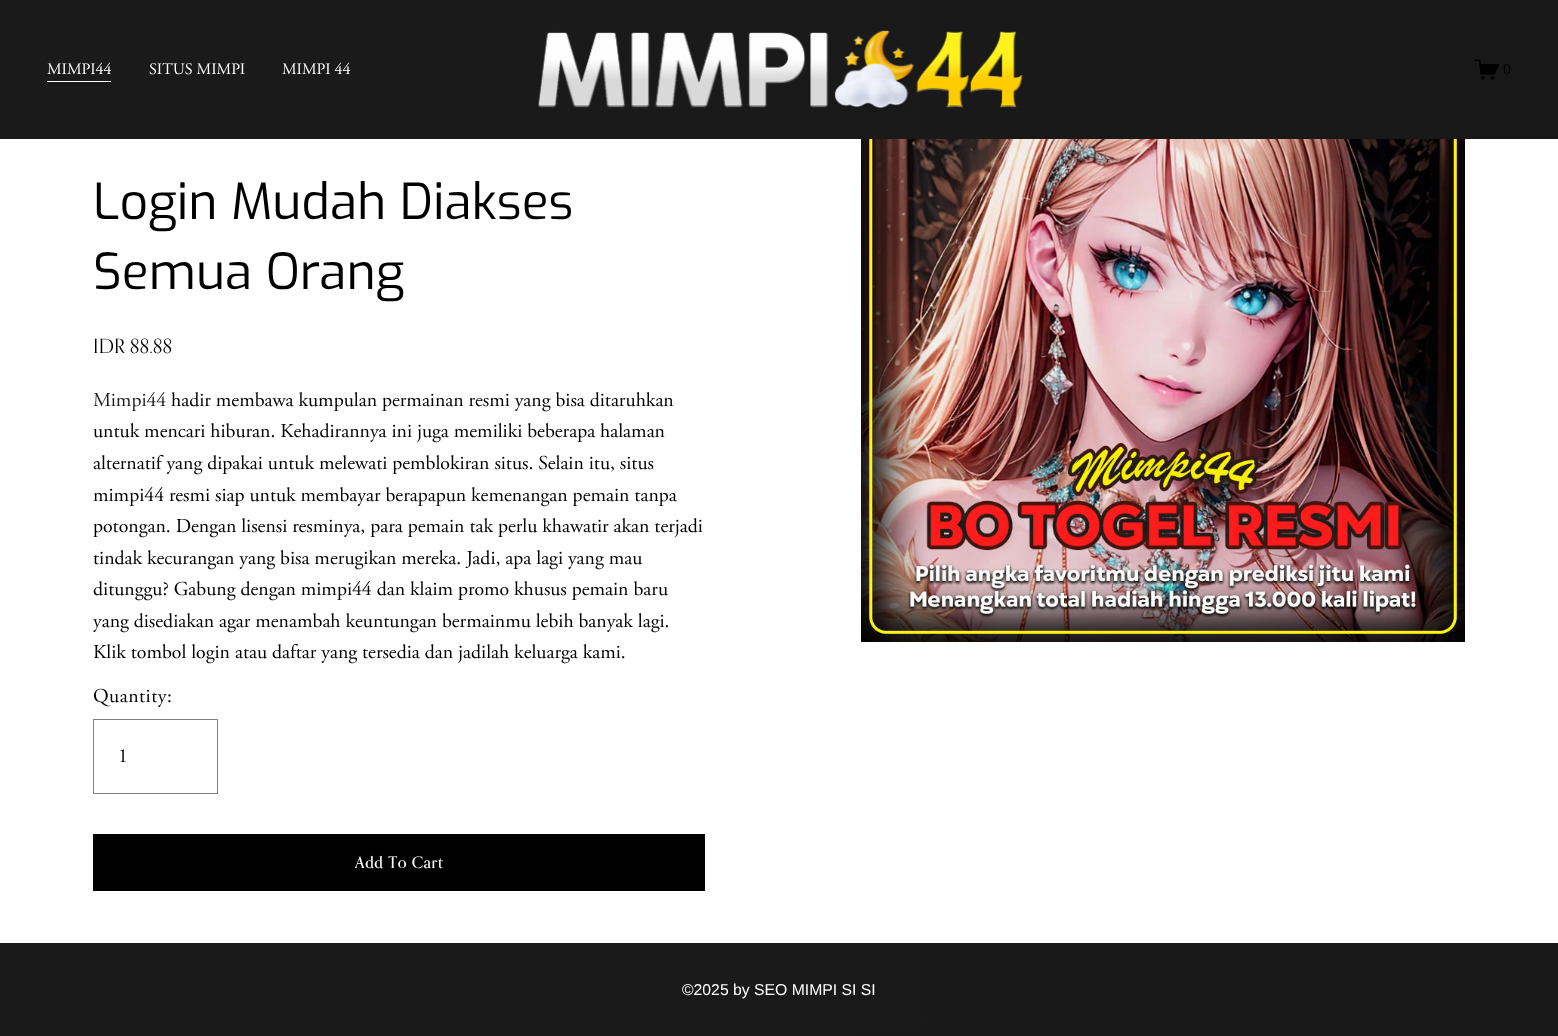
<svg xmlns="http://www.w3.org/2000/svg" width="1558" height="1036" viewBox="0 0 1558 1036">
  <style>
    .t1 { font: 16px Adobe Garamond; fill: #fff; }
    .t2 { font: 16px Adobe Garamond; fill: #000; }
    .t3 { font: 49.75px Exo; fill: #000; }
    .t4 { font: 19.75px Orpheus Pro; fill: #000; }
    .t5 { font: 19.75px Adobe Garamond; fill: #1f1f1f; }
    .t6 { font: 19.75px Adobe Garamond; fill: #000; }
    .t7 { font: 19.75px Adobe Garamond; letter-spacing: 0.5px; fill: #000; }
    .t8 { font: 500 16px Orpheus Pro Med; letter-spacing: 0.6px; fill: #fff; }
    .t9 { font: 15.75px Liberation Sans; fill: #fff; }
  </style>
  <defs>
    <linearGradient id="g1" gradientUnits="userSpaceOnUse" x1="-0.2" y1="71" x2="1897" y2="67"><stop offset="0.29" stop-color="#1a1a1a"/><stop offset="1" stop-color="#171717"/></linearGradient>
    <linearGradient id="g2" gradientUnits="userSpaceOnUse" x1="-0.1" y1="991" x2="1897" y2="987"><stop offset="0.29" stop-color="#1a1a1a"/><stop offset="1" stop-color="#171717"/></linearGradient>
  </defs>
  <rect width="100%" height="100%" fill="#fff"/>
  <rect x="0" y="0" width="1558" height="139" fill="url(#g1)"/>
  <rect x="47" y="81" width="64" height="1" fill="#fff"/>
  <text x="47" y="74" class="t1">MIMPI44</text>
  <text x="149" y="74" class="t1">SITUS MIMPI</text>
  <text x="282" y="74" class="t1">MIMPI 44</text>
  <image x="537" y="30" width="486" height="79" href="images/1.png"/>
  <image x="1474" y="59" width="25" height="21" href="images/2.png"/>
  <text x="1503" y="74" class="t2">0</text>
  <text x="93" y="219" class="t3">Login Mudah Diakses</text>
  <text x="93" y="289" class="t3">Semua Orang</text>
  <text x="93" y="353" class="t4">IDR 88.88</text>
  <text x="93" y="406" class="t5">Mimpi44</text>
  <text x="171" y="406" class="t6">hadir membawa kumpulan permainan resmi yang bisa ditaruhkan</text>
  <text x="93" y="437" class="t6">untuk mencari hiburan. Kehadirannya ini juga memiliki beberapa halaman</text>
  <text x="93" y="469" class="t6">alternatif yang dipakai untuk melewati pemblokiran situs. Selain itu, situs</text>
  <text x="93" y="501" class="t6">mimpi44 resmi siap untuk membayar berapapun kemenangan pemain tanpa</text>
  <text x="93" y="532" class="t6">potongan. Dengan lisensi resminya, para pemain tak perlu khawatir akan terjadi</text>
  <text x="93" y="564" class="t6">tindak kecurangan yang bisa merugikan mereka. Jadi, apa lagi yang mau</text>
  <text x="93" y="595" class="t6">ditunggu? Gabung dengan mimpi44 dan klaim promo khusus pemain baru</text>
  <text x="93" y="627" class="t6">yang disediakan agar menambah keuntungan bermainmu lebih banyak lagi.</text>
  <text x="93" y="658" class="t6">Klik tombol login atau daftar yang tersedia dan jadilah keluarga kami.</text>
  <text x="93" y="702" class="t7">Quantity:</text>
  <rect x="93.5" y="719.5" width="124" height="74" fill="none" stroke="#808080"/>
  <text x="118" y="762" class="t6">1</text>
  <rect x="93" y="834" width="612" height="57" fill="#000"/>
  <text x="355" y="868" class="t8">Add To Cart</text>
  <image x="861" y="139" width="604" height="503" href="images/3.png"/>
  <rect x="0" y="943" width="1558" height="93" fill="url(#g2)"/>
  <text x="682" y="995" class="t9">©2025 by SEO MIMPI SI SI</text>
</svg>
